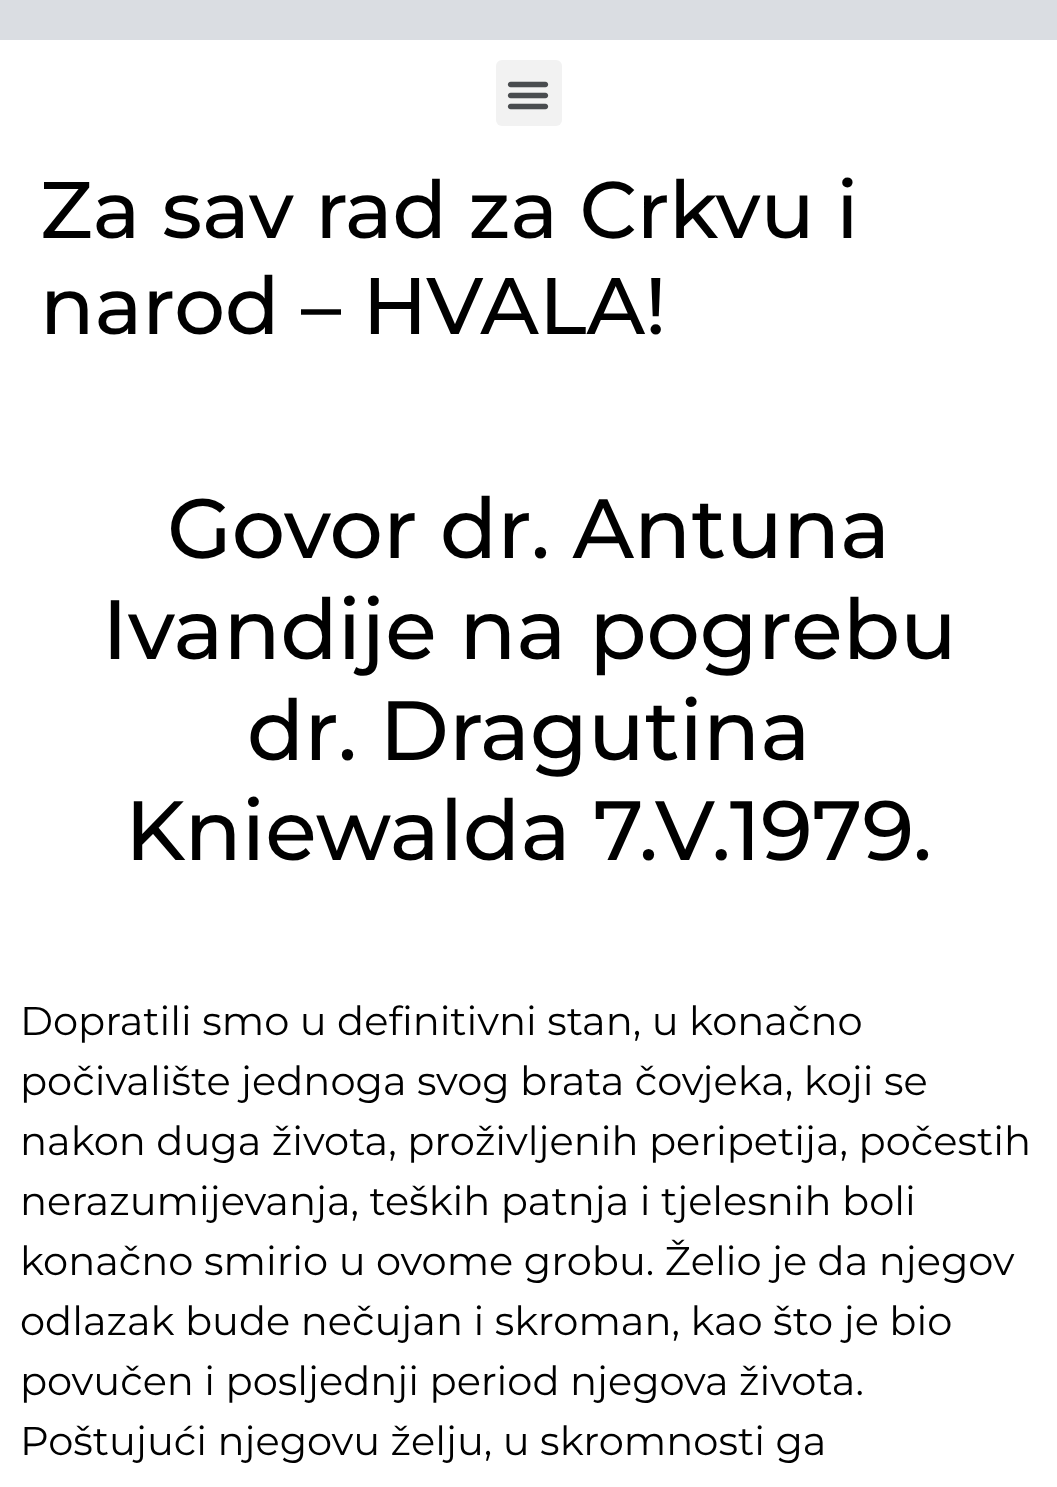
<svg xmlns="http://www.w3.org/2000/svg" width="1057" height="1487">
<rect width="100%" height="100%" fill="#fff"/>
<rect width="1057" height="40" fill="#dadde2"/>
<rect x="496" y="60" width="66" height="66" rx="6" fill="#f2f2f2"/>
<image x="507" y="81" width="42" height="29" href="media/1.png"/>
<text x="40" y="238" style="font-family:Montserrat;font-size:80px;font-weight:500;fill:#000">Za sav rad za Crkvu i</text>
<text x="40" y="334" style="font-family:Montserrat;font-size:80px;font-weight:500;fill:#000">narod – HVALA!</text>
<text x="167" y="558" style="font-family:Montserrat;font-size:84px;font-weight:500;fill:#000">Govor dr. Antuna</text>
<text x="102" y="659" style="font-family:Montserrat;font-size:84px;font-weight:500;fill:#000">Ivandije na pogrebu</text>
<text x="247" y="760" style="font-family:Montserrat;font-size:84px;font-weight:500;fill:#000">dr. Dragutina</text>
<text x="125" y="860" style="font-family:Montserrat;font-size:84px;font-weight:500;fill:#000">Kniewalda 7.V.1979.</text>
<text x="20" y="1035" style="font-family:Montserrat;font-size:40px;fill:#000">Dopratili smo u definitivni stan, u konačno</text>
<text x="20" y="1095" style="font-family:Montserrat;font-size:40px;fill:#000">počivalište jednoga svog brata čovjeka, koji se</text>
<text x="20" y="1155" style="font-family:Montserrat;font-size:40px;fill:#000">nakon duga života, proživljenih peripetija, počestih</text>
<text x="20" y="1215" style="font-family:Montserrat;font-size:40px;fill:#000">nerazumijevanja, teških patnja i tjelesnih boli</text>
<text x="20" y="1275" style="font-family:Montserrat;font-size:40px;fill:#000">konačno smirio u ovome grobu. Želio je da njegov</text>
<text x="20" y="1335" style="font-family:Montserrat;font-size:40px;fill:#000">odlazak bude nečujan i skroman, kao što je bio</text>
<text x="20" y="1395" style="font-family:Montserrat;font-size:40px;fill:#000">povučen i posljednji period njegova života.</text>
<text x="20" y="1455" style="font-family:Montserrat;font-size:40px;fill:#000">Poštujući njegovu želju, u skromnosti ga</text>
</svg>
